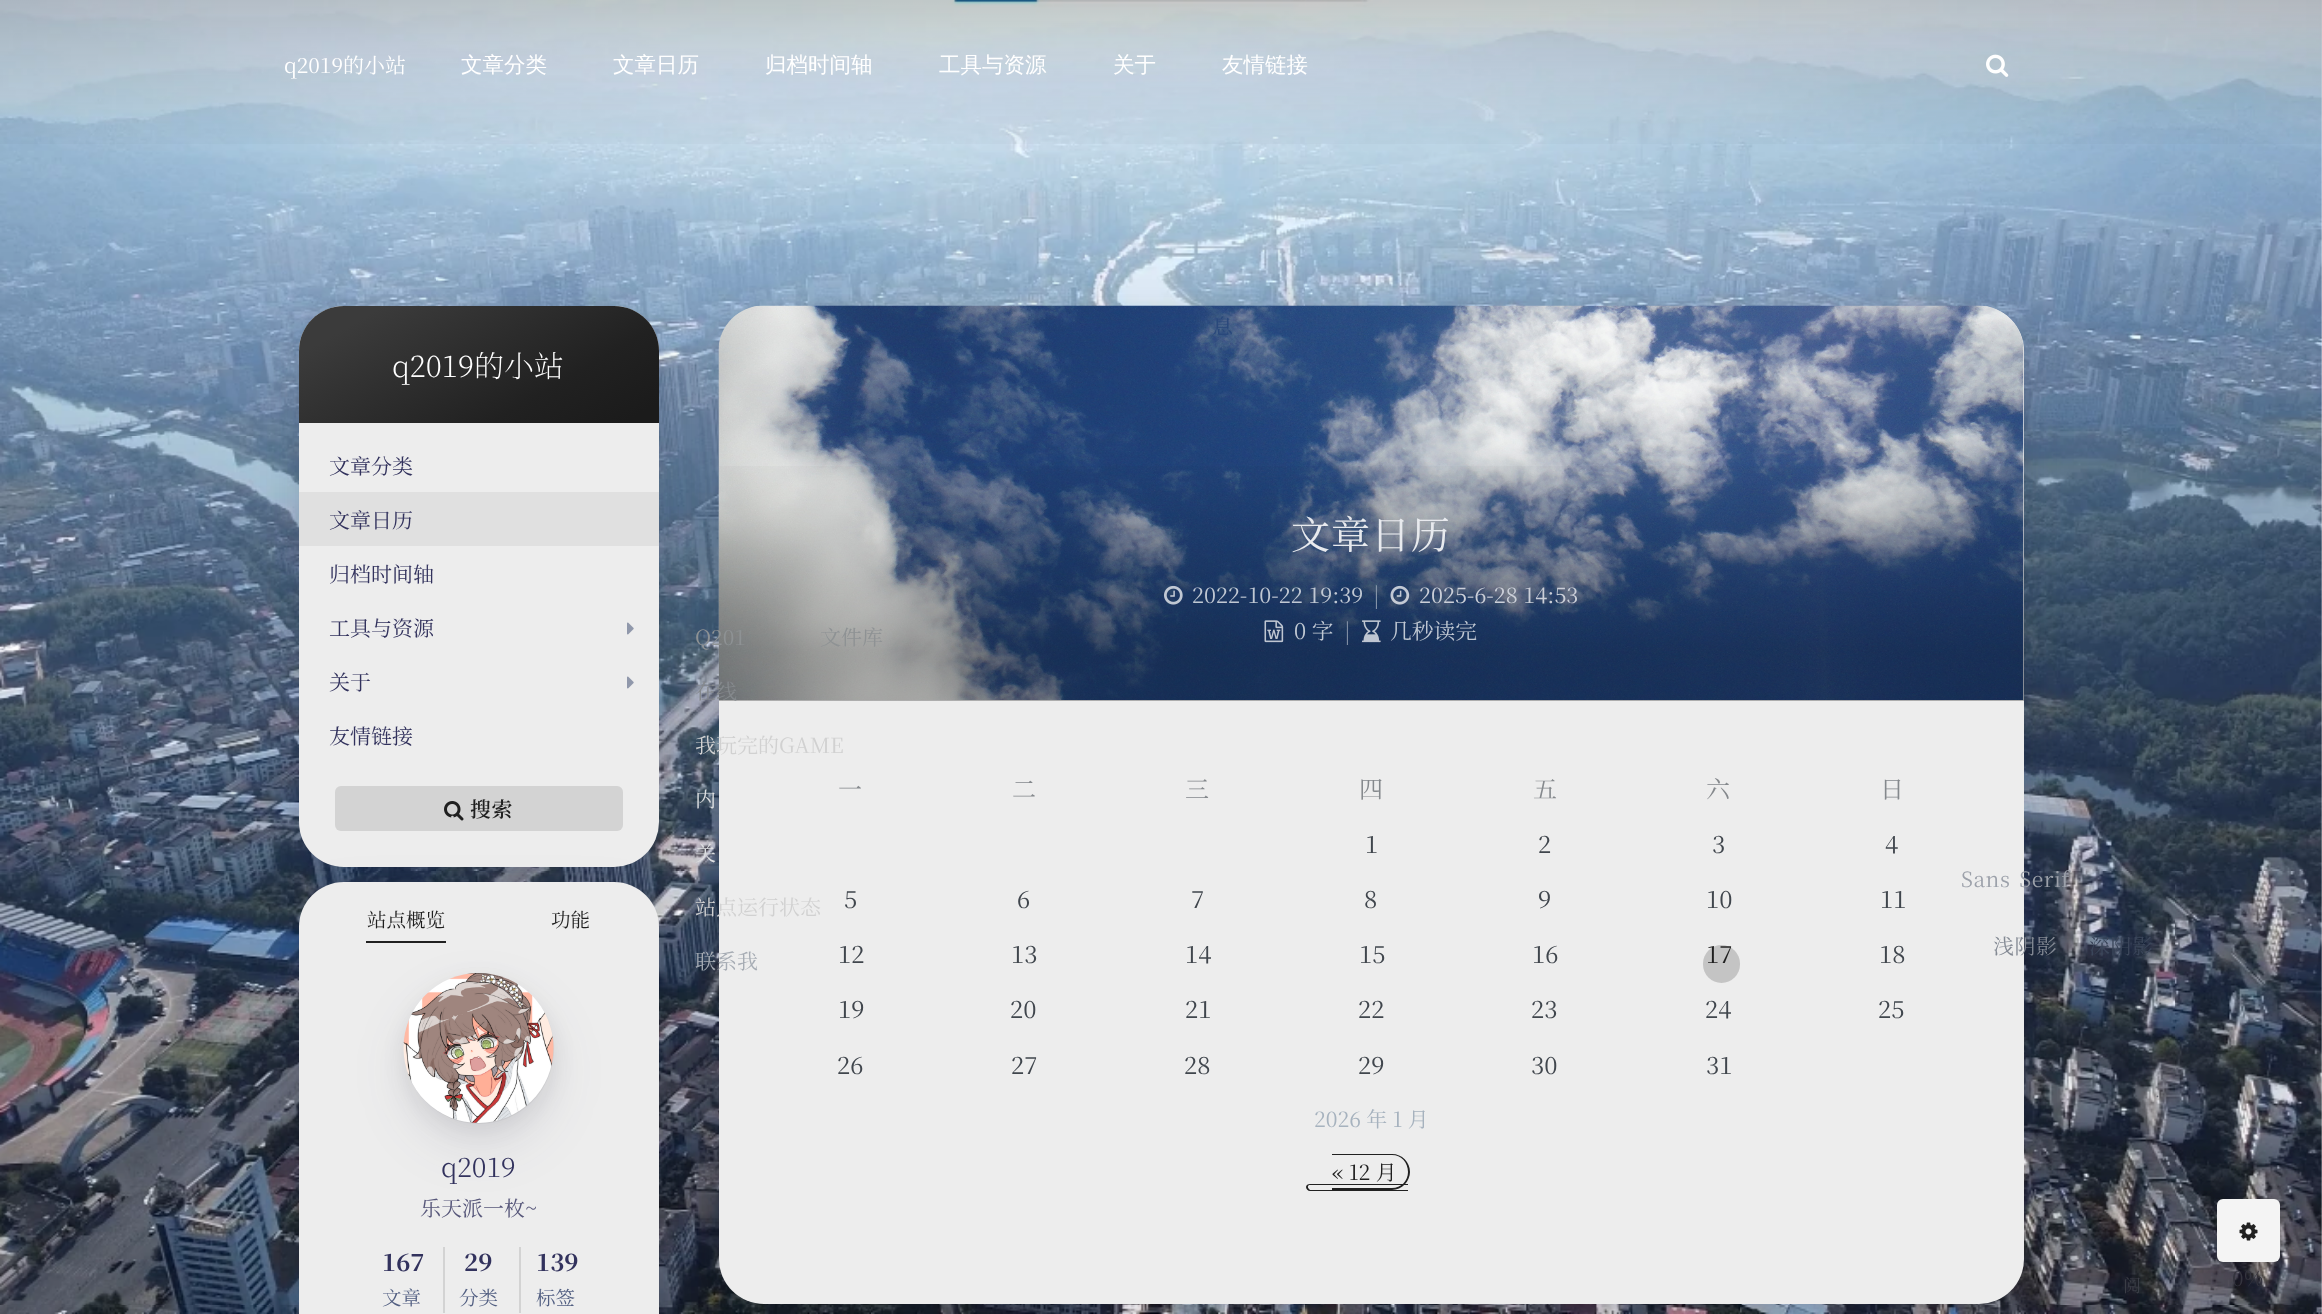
<svg xmlns="http://www.w3.org/2000/svg" width="2322" height="1314">
<style>*{font-kerning:none!important;font-variant-ligatures:none!important}</style>
<defs>
<linearGradient id="g1" gradientUnits="userSpaceOnUse" x1="1161" y1="-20" x2="1161" y2="161"><stop offset="0" stop-color="#000" stop-opacity="0.25"/><stop offset="0.35" stop-color="#000" stop-opacity="0.15"/><stop offset="1" stop-color="#000" stop-opacity="0"/></linearGradient>
<linearGradient id="g2" gradientUnits="userSpaceOnUse" x1="408" y1="243" x2="549" y2="486"><stop offset="0.15" stop-color="#3b3b3b"/><stop offset="0.7" stop-color="#212121"/><stop offset="0.94" stop-color="#1b1b1b"/></linearGradient>
<linearGradient id="g3" gradientUnits="userSpaceOnUse" x1="1371" y1="701" x2="1371" y2="450"><stop offset="0.2" stop-color="#000" stop-opacity="0.27"/><stop offset="1" stop-color="#000" stop-opacity="0"/></linearGradient>
</defs>
<rect width="100%" height="100%" fill="#fff"/>
<image x="0" y="0" width="2322" height="1314" href="media/2.png"/>
<rect width="2322" height="144" fill="url(#g1)"/>
<text x="284" y="73" style="font-family:Noto Serif SC;font-size:21px;fill:#fff">q2019的小站</text>
<text x="461" y="72" style="font-family:WenQuanYi Zen Hei;font-size:21.5px;font-weight:500;fill:#fff">文章分类</text>
<text x="613" y="72" style="font-family:WenQuanYi Zen Hei;font-size:21.5px;font-weight:500;fill:#fff">文章日历</text>
<text x="765" y="72" style="font-family:WenQuanYi Zen Hei;font-size:21.5px;font-weight:500;fill:#fff">归档时间轴</text>
<text x="939" y="72" style="font-family:WenQuanYi Zen Hei;font-size:21.5px;font-weight:500;fill:#fff">工具与资源</text>
<text x="1113" y="72" style="font-family:WenQuanYi Zen Hei;font-size:21.5px;font-weight:500;fill:#fff">关于</text>
<rect x="719" y="314" width="1305" height="997" rx="45" fill="#00000012" filter="blur(11px)"/>
<rect x="299" y="314" width="360" height="561" rx="45" fill="#00000012" filter="blur(11px)"/>
<rect x="299" y="329" width="360" height="561" rx="45" fill="#32325d1a" filter="blur(26px)"/>
<rect x="299" y="306" width="360" height="561" rx="45" fill="#ededed"/>
<path d="M344 306h270c25 0 45 20 45 45v72h-360v-72c0-25 20-45 45-45z" fill="url(#g2)"/>
<rect x="299" y="492" width="360" height="54" fill="#e0e0e0"/>
<rect x="299" y="890" width="360" height="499" rx="45" fill="#00000012" filter="blur(11px)"/>
<rect x="335" y="786" width="288" height="45" rx="6" fill="#d3d3d3"/>
<rect x="299" y="905" width="360" height="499" rx="45" fill="#32325d1a" filter="blur(26px)"/>
<rect x="299" y="882" width="360" height="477" rx="45" fill="#ededed"/>
<rect x="719" y="329" width="1305" height="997" rx="45" fill="#32325d1a" filter="blur(26px)"/>
<rect x="719" y="306" width="1305" height="998" rx="45" fill="#ededed"/>
<image x="718" y="305" width="1306" height="395" href="media/6.png"/>
<text x="1212" y="334" style="font-family:Noto Serif SC;font-size:21px;fill:#29487b">息</text>
<text x="1222" y="72" style="font-family:WenQuanYi Zen Hei;font-size:21.5px;font-weight:500;fill:#fff">友情链接</text>
<image x="1986" y="54" width="23" height="23" href="media/1.png"/>
<text x="392" y="377" style="font-family:Noto Serif SC;font-size:30px;font-weight:200;fill:#fff">q2019的小站</text>
<text x="329" y="474" style="font-family:Noto Serif SC;font-size:21px;fill:#32325d">文章分类</text>
<text x="329" y="528" style="font-family:Noto Serif SC;font-size:21px;fill:#32325d">文章日历</text>
<text x="329" y="582" style="font-family:Noto Serif SC;font-size:21px;fill:#32325d">归档时间轴</text>
<text x="329" y="636" style="font-family:Noto Serif SC;font-size:21px;fill:#32325d">工具与资源</text>
<image x="627" y="622" width="7" height="13" href="media/3.png"/>
<rect x="719" y="466" width="1305" height="235" fill="url(#g3)"/>
<text x="695" y="645" style="font-family:Noto Serif SC;font-size:21px;fill:#8e9294">Q201</text>
<text x="820" y="645" style="font-family:Noto Serif SC;font-size:21px;fill:#8e9294">文件库</text>
<text x="695" y="699" style="font-family:Noto Serif SC;font-size:21px;fill:#85898d">在线</text>
<text x="329" y="690" style="font-family:Noto Serif SC;font-size:21px;fill:#32325d">关于</text>
<image x="627" y="676" width="7" height="13" href="media/3.png"/>
<text x="695" y="753" style="font-family:Noto Serif SC;font-size:21px;fill:#d1d1d1">我玩完的GAME</text>
<text x="695" y="807" style="font-family:Noto Serif SC;font-size:21px;fill:#dddfe1">内</text>
<text x="695" y="861" style="font-family:Noto Serif SC;font-size:21px;fill:#dddfe1">关</text>
<text x="695" y="915" style="font-family:Noto Serif SC;font-size:21px;fill:#d1d1d1">站点运行状态</text>
<text x="695" y="969" style="font-family:Noto Serif SC;font-size:21px;fill:#a6acb4">联系我</text>
<text x="329" y="744" style="font-family:Noto Serif SC;font-size:21px;fill:#32325d">友情链接</text>
<image x="444" y="801" width="20" height="20" href="media/4.png"/>
<text x="470" y="817" style="font-family:Noto Serif SC;font-size:21px;font-weight:600;letter-spacing:0.5px;fill:#1f1f1f">搜索</text>
<text x="449" y="818" style="font-family:Noto Serif SC;font-size:21px;fill:#d1d1d1">.</text>
<rect x="404" y="996" width="150" height="150" rx="75" fill="#32325d1a" filter="blur(26px)"/>
<text x="367" y="927" style="font-family:Noto Serif SC;font-size:19.5px;fill:#1f1f1f">站点概览</text>
<rect x="366" y="941" width="80" height="2" fill="#212121"/>
<text x="551" y="927" style="font-family:Noto Serif SC;font-size:19.5px;fill:#1f1f1f">功能</text>
<rect x="404" y="981" width="150" height="150" rx="75" fill="#00000012" filter="blur(11px)"/>
<circle cx="479" cy="1049" r="75" fill="#7f7f7f1a"/>
<image x="403" y="973" width="151" height="150" href="media/5.png"/>
<text x="441" y="1177" style="font-family:Noto Serif SC;font-size:27px;font-weight:300;fill:#32325d">q2019</text>
<text x="420" y="1216" style="font-family:Noto Serif SC;font-size:21px;fill:#57577a">乐天派一枚~</text>
<text x="382" y="1271" style="font-family:Noto Serif SC;font-size:24px;font-weight:bold;fill:#32325d">167</text>
<text x="382" y="1305" style="font-family:Noto Serif SC;font-size:19.5px;fill:#525f82">文章</text>
<rect x="443" y="1247" width="2" height="66" fill="#d3d3d3"/>
<text x="464" y="1271" style="font-family:Noto Serif SC;font-size:24px;font-weight:bold;fill:#32325d">29</text>
<text x="459" y="1305" style="font-family:Noto Serif SC;font-size:19.5px;fill:#525f82">分类</text>
<rect x="519" y="1247" width="2" height="66" fill="#d3d3d3"/>
<text x="536" y="1271" style="font-family:Noto Serif SC;font-size:24px;font-weight:bold;fill:#32325d">139</text>
<text x="536" y="1305" style="font-family:Noto Serif SC;font-size:19.5px;fill:#525f82">标签</text>
<text x="1291" y="549" style="font-family:Noto Serif SC;font-size:39px;letter-spacing:1px;fill:#e8eaee">文章日历</text>
<image x="1164" y="585" width="19" height="20" href="media/7.png"/>
<text x="1192" y="603" style="font-family:Noto Serif SC;font-size:21.75px;fill:#c0c8d3">2022-10-22 19:39</text>
<text x="1373" y="603" style="font-family:Noto Serif SC;font-size:21.75px;fill:#8897ab">|</text>
<image x="1390" y="585" width="20" height="20" href="media/8.png"/>
<text x="1419" y="603" style="font-family:Noto Serif SC;font-size:21.75px;fill:#cbcfd8">2025-6-28 14:53</text>
<image x="1264" y="620" width="20" height="23" href="media/9.png"/>
<text x="1294" y="639" style="font-family:Noto Serif SC;font-size:21.75px;fill:#c0c8d3">0 字</text>
<text x="1344" y="639" style="font-family:Noto Serif SC;font-size:21.75px;fill:#8391a6">|</text>
<image x="1362" y="620" width="19" height="23" href="media/10.png"/>
<text x="1390" y="639" style="font-family:Noto Serif SC;font-size:21.75px;fill:#c0c8d3">几秒读完</text>
<text x="838" y="798" style="font-family:Noto Serif SC;font-size:24px;fill:#85898d">一</text>
<text x="1012" y="798" style="font-family:Noto Serif SC;font-size:24px;fill:#85898d">二</text>
<text x="1185" y="798" style="font-family:Noto Serif SC;font-size:24px;fill:#85898d">三</text>
<text x="1359" y="798" style="font-family:Noto Serif SC;font-size:24px;fill:#85898d">四</text>
<text x="1533" y="798" style="font-family:Noto Serif SC;font-size:24px;fill:#85898d">五</text>
<text x="1706" y="798" style="font-family:Noto Serif SC;font-size:24px;fill:#85898d">六</text>
<text x="1880" y="798" style="font-family:Noto Serif SC;font-size:24px;fill:#85898d">日</text>
<text x="1365" y="853" style="font-family:Noto Serif SC;font-size:24px;fill:#40464d">1</text>
<text x="1538" y="853" style="font-family:Noto Serif SC;font-size:24px;fill:#40464d">2</text>
<text x="1712" y="853" style="font-family:Noto Serif SC;font-size:24px;fill:#40464d">3</text>
<text x="1885" y="853" style="font-family:Noto Serif SC;font-size:24px;fill:#40464d">4</text>
<text x="844" y="908" style="font-family:Noto Serif SC;font-size:24px;fill:#40464d">5</text>
<text x="1017" y="908" style="font-family:Noto Serif SC;font-size:24px;fill:#40464d">6</text>
<text x="1191" y="908" style="font-family:Noto Serif SC;font-size:24px;fill:#40464d">7</text>
<text x="1364" y="908" style="font-family:Noto Serif SC;font-size:24px;fill:#40464d">8</text>
<text x="1538" y="908" style="font-family:Noto Serif SC;font-size:24px;fill:#40464d">9</text>
<text x="1706" y="908" style="font-family:Noto Serif SC;font-size:24px;fill:#40464d">10</text>
<text x="1880" y="908" style="font-family:Noto Serif SC;font-size:24px;fill:#40464d">11</text>
<text x="838" y="963" style="font-family:Noto Serif SC;font-size:24px;fill:#40464d">12</text>
<text x="1011" y="963" style="font-family:Noto Serif SC;font-size:24px;fill:#40464d">13</text>
<text x="1185" y="963" style="font-family:Noto Serif SC;font-size:24px;fill:#40464d">14</text>
<text x="1359" y="963" style="font-family:Noto Serif SC;font-size:24px;fill:#40464d">15</text>
<text x="1532" y="963" style="font-family:Noto Serif SC;font-size:24px;fill:#40464d">16</text>
<text x="1706" y="963" style="font-family:Noto Serif SC;font-size:24px;fill:#1f1f1f">17</text>
<rect x="1703" y="945" width="37" height="38" rx="18.5" fill="#21212133"/>
<text x="1879" y="963" style="font-family:Noto Serif SC;font-size:24px;fill:#40464d">18</text>
<text x="838" y="1018" style="font-family:Noto Serif SC;font-size:24px;fill:#40464d">19</text>
<text x="1010" y="1018" style="font-family:Noto Serif SC;font-size:24px;fill:#40464d">20</text>
<text x="1185" y="1018" style="font-family:Noto Serif SC;font-size:24px;fill:#40464d">21</text>
<text x="1358" y="1018" style="font-family:Noto Serif SC;font-size:24px;fill:#40464d">22</text>
<text x="1531" y="1018" style="font-family:Noto Serif SC;font-size:24px;fill:#40464d">23</text>
<text x="1705" y="1018" style="font-family:Noto Serif SC;font-size:24px;fill:#40464d">24</text>
<text x="1878" y="1018" style="font-family:Noto Serif SC;font-size:24px;fill:#40464d">25</text>
<text x="837" y="1074" style="font-family:Noto Serif SC;font-size:24px;fill:#40464d">26</text>
<text x="1011" y="1074" style="font-family:Noto Serif SC;font-size:24px;fill:#40464d">27</text>
<text x="1184" y="1074" style="font-family:Noto Serif SC;font-size:24px;fill:#40464d">28</text>
<text x="1358" y="1074" style="font-family:Noto Serif SC;font-size:24px;fill:#40464d">29</text>
<text x="1531" y="1074" style="font-family:Noto Serif SC;font-size:24px;fill:#40464d">30</text>
<text x="1706" y="1074" style="font-family:Noto Serif SC;font-size:24px;fill:#40464d">31</text>
<text x="1314" y="1127" style="font-family:Noto Serif SC;font-size:21px;fill:#a6b2be">2026 年 1 月</text>
<path d="M1310 1184h98v7h-98c-2 0-4-2-4-4c0-2 2-3 4-3zm0 1h98v5h-98l-1-1c-2-2-1-4 1-4z" fill="#212121" fill-rule="evenodd"/>
<path d="M1332 1154h60c10 0 18 8 18 18c0 9-8 18-18 18h-60zm0 1h60c9 0 16 7 16 17c0 9-7 16-16 16h-60z" fill="#212121" fill-rule="evenodd"/>
<text x="1332" y="1180" style="font-family:Noto Serif SC;font-size:21px;fill:#1f1f1f">« 12 月</text>
<text x="1961" y="887" word-spacing="3" style="font-family:Noto Serif SC;font-size:21px;letter-spacing:0.5px;fill:#9ca1aa">Sans Serif</text>
<text x="1993" y="954" style="font-family:Noto Serif SC;font-size:21px;letter-spacing:0.5px;fill:#838993">浅阴影</text>
<text x="2089" y="954" style="font-family:Noto Serif SC;font-size:21px;letter-spacing:0.5px;fill:#3b465a">深阴影</text>
<text x="2155" y="1097" style="font-family:Noto Serif SC;font-size:15px;fill:#656872">.</text>
<rect x="2217" y="1206" width="63" height="63" rx="6" fill="#00000012" filter="blur(11px)"/>
<rect x="2217" y="1221" width="63" height="63" rx="6" fill="#32325d1a" filter="blur(26px)"/>
<rect x="2217" y="1199" width="63" height="63" rx="6" fill="#f4f4f4"/>
<image x="2239" y="1222" width="19" height="19" href="media/11.png"/>
<text x="2123" y="1292" style="font-family:Noto Serif SC;font-size:18px;letter-spacing:0.5px;fill:#3a3d46">阅</text>
<text x="2232" y="1286" style="font-family:Noto Serif SC;font-size:21px;letter-spacing:0.5px;fill:#34343e">0%</text>
</svg>
